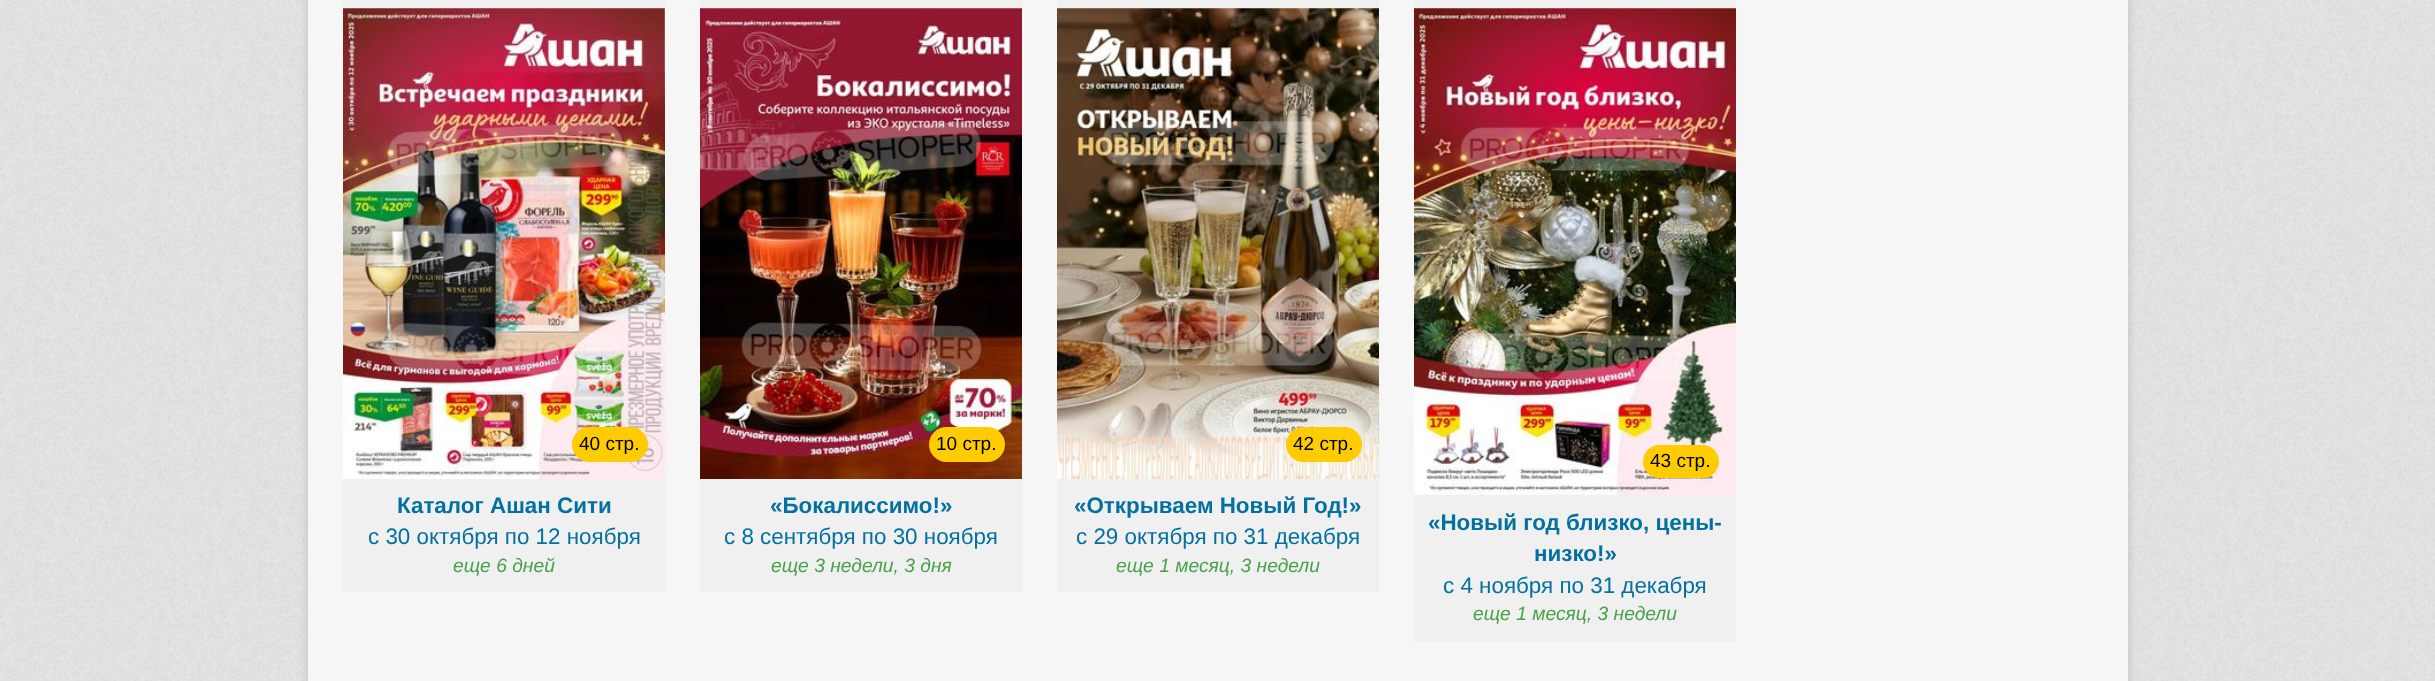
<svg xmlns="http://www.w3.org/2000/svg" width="2435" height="681">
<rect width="100%" height="100%" fill="#fff"/>
<image x="0" y="0" width="2435" height="681" href="media/1.png"/>
<rect x="308" y="-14" width="1820" height="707" fill="#00000026" filter="blur(4.5px)"/>
<rect x="308" width="1820" height="681" fill="#f6f6f6"/>
<rect x="343" width="322" height="592" fill="#f0f0f0"/>
<image x="343" y="8" width="322" height="471" href="media/2.png"/>
<rect x="572" y="427" width="76" height="35" rx="17.5" fill="#ffcc01"/>
<text x="579" y="450" style="font-family:Liberation Sans;font-size:19px;fill:#000">40 стр.</text>
<text x="397" y="513" style="font-family:Liberation Sans;font-size:22.4px;font-weight:bold;fill:#0371a0">Каталог Ашан Сити</text>
<text x="368" y="544" style="font-family:Liberation Sans;font-size:22.4px;fill:#0371a0">с 30 октября по 12 ноября</text>
<text x="453" y="572" style="font-family:Liberation Sans;font-size:19.25px;font-style:italic;fill:#48a248">еще 6 дней</text>
<rect x="700" width="322" height="592" fill="#f0f0f0"/>
<image x="700" y="8" width="322" height="471" href="media/3.png"/>
<rect x="929" y="427" width="76" height="35" rx="17.5" fill="#ffcc01"/>
<text x="936" y="450" style="font-family:Liberation Sans;font-size:19px;fill:#000">10 стр.</text>
<text x="770" y="513" style="font-family:Liberation Sans;font-size:22.4px;font-weight:bold;fill:#0371a0">«Бокалиссимо!»</text>
<text x="724" y="544" style="font-family:Liberation Sans;font-size:22.4px;fill:#0371a0">с 8 сентября по 30 ноября</text>
<text x="771" y="572" style="font-family:Liberation Sans;font-size:19.25px;font-style:italic;fill:#48a248">еще 3 недели, 3 дня</text>
<rect x="1057" width="322" height="592" fill="#f0f0f0"/>
<image x="1057" y="8" width="322" height="471" href="media/4.png"/>
<rect x="1286" y="427" width="76" height="35" rx="17.5" fill="#ffcc01"/>
<text x="1293" y="450" style="font-family:Liberation Sans;font-size:19px;fill:#000">42 стр.</text>
<text x="1074" y="513" style="font-family:Liberation Sans;font-size:22.4px;font-weight:bold;fill:#0371a0">«Открываем Новый Год!»</text>
<text x="1076" y="544" style="font-family:Liberation Sans;font-size:22.4px;fill:#0371a0">с 29 октября по 31 декабря</text>
<text x="1116" y="572" style="font-family:Liberation Sans;font-size:19.25px;font-style:italic;fill:#48a248">еще 1 месяц, 3 недели</text>
<rect x="1414" width="322" height="641" fill="#f0f0f0"/>
<image x="1414" y="8" width="322" height="487" href="media/5.png"/>
<rect x="1643" y="445" width="76" height="33" rx="16.5" fill="#ffcc01"/>
<text x="1650" y="467" style="font-family:Liberation Sans;font-size:19px;fill:#000">43 стр.</text>
<text x="1428" y="530" style="font-family:Liberation Sans;font-size:22.4px;font-weight:bold;fill:#0371a0">«Новый год близко, цены-</text>
<text x="1534" y="561" style="font-family:Liberation Sans;font-size:22.4px;font-weight:bold;fill:#0371a0">низко!»</text>
<text x="1443" y="593" style="font-family:Liberation Sans;font-size:22.4px;fill:#0371a0">с 4 ноября по 31 декабря</text>
<text x="1473" y="620" style="font-family:Liberation Sans;font-size:19.25px;font-style:italic;fill:#48a248">еще 1 месяц, 3 недели</text>
</svg>
